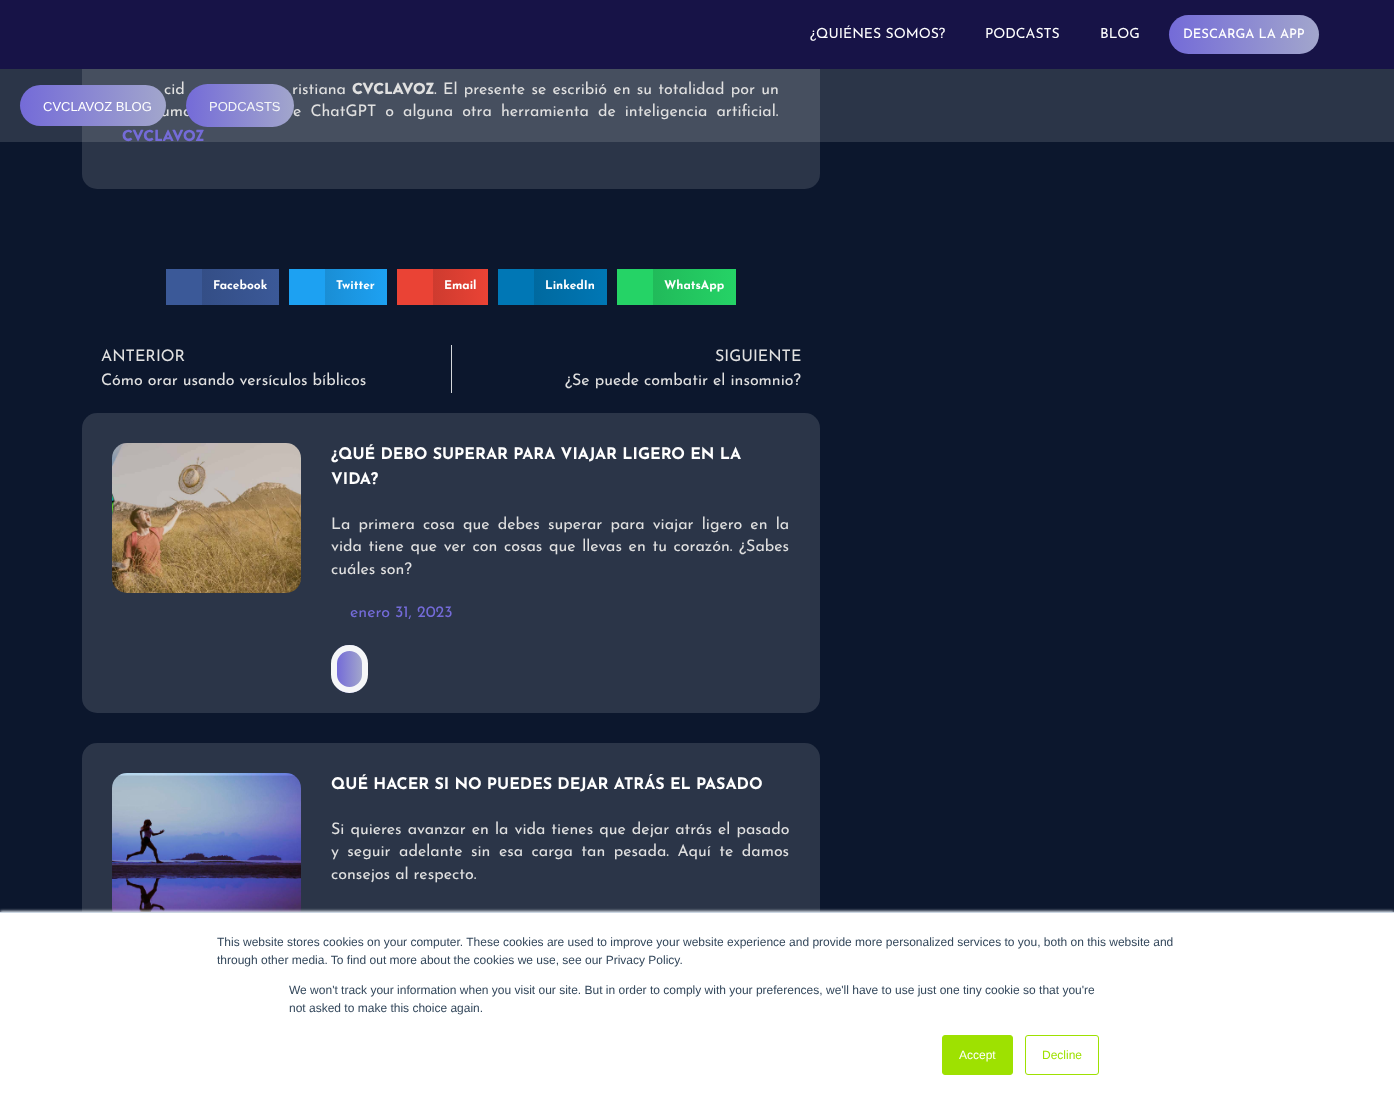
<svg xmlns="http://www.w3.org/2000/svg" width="1394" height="1101">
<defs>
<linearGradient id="g1" gradientUnits="userSpaceOnUse" x1="1169" y1="35" x2="1319" y2="34"><stop offset="0" stop-color="#746bd8"/><stop offset="1" stop-color="#a2a6cc"/></linearGradient>
<linearGradient id="g2" gradientUnits="userSpaceOnUse" x1="20" y1="106" x2="166" y2="106"><stop offset="0" stop-color="#746bd8"/><stop offset="1" stop-color="#a2a6cc"/></linearGradient>
<linearGradient id="g3" gradientUnits="userSpaceOnUse" x1="186" y1="106" x2="294" y2="106"><stop offset="0" stop-color="#746bd8"/><stop offset="1" stop-color="#a2a6cc"/></linearGradient>
<linearGradient id="g4" gradientUnits="userSpaceOnUse" x1="202" y1="287" x2="279" y2="287"><stop offset="0" stop-color="#344e86"/><stop offset="1" stop-color="#3b5998"/></linearGradient>
<linearGradient id="g5" gradientUnits="userSpaceOnUse" x1="325" y1="287" x2="387" y2="287"><stop offset="0" stop-color="#1a8ed5"/><stop offset="1" stop-color="#1da1f2"/></linearGradient>
<linearGradient id="g6" gradientUnits="userSpaceOnUse" x1="433" y1="287" x2="488" y2="287"><stop offset="0" stop-color="#ce3b2f"/><stop offset="1" stop-color="#ea4335"/></linearGradient>
<linearGradient id="g7" gradientUnits="userSpaceOnUse" x1="534" y1="287" x2="607" y2="287"><stop offset="0" stop-color="#00699f"/><stop offset="1" stop-color="#0077b5"/></linearGradient>
<linearGradient id="g8" gradientUnits="userSpaceOnUse" x1="653" y1="287" x2="736" y2="287"><stop offset="0" stop-color="#21ba5a"/><stop offset="1" stop-color="#25d366"/></linearGradient>
<clipPath id="clip1"><rect x="331" y="645" width="37" height="48" rx="18.5"/></clipPath>
<linearGradient id="g9" gradientUnits="userSpaceOnUse" x1="337" y1="669" x2="362" y2="669"><stop offset="0" stop-color="#746bd8"/><stop offset="1" stop-color="#a2a6cc"/></linearGradient>
</defs>
<rect width="100%" height="100%" fill="#0c172d"/>
<rect x="82" y="15" width="738" height="174" rx="15" fill="#2b3548"/>
<rect width="1394" height="69" fill="#171347"/>
<text x="810" y="38" style="font-family:Josefin Sans;font-size:14px;fill:#fff">¿QUIÉNES SOMOS?</text>
<text x="985" y="38" style="font-family:Josefin Sans;font-size:14px;fill:#fff">PODCASTS</text>
<text x="1100" y="38" style="font-family:Josefin Sans;font-size:14px;fill:#fff">BLOG</text>
<rect x="1169" y="15" width="150" height="39" rx="19.5" fill="url(#g1)"/>
<text x="1183" y="38" style="font-family:Josefin Sans;font-size:13px;font-weight:500;fill:#fff">DESCARGA LA APP</text>
<rect y="69" width="1394" height="73" fill="#fdfcff21"/>
<text x="164" y="94" word-spacing="1.25" style="font-family:Josefin Sans;font-size:16px;fill:#e0e0e0">cid</text>
<text x="161" y="116" word-spacing="4" style="font-family:Josefin Sans;font-size:16px;fill:#e0e0e0">uma</text>
<rect x="20" y="85" width="146" height="41" rx="20.5" fill="url(#g2)"/>
<text x="43" y="111" style="font-family:Liberation Sans;font-size:13px;fill:#fff">CVCLAVOZ BLOG</text>
<text x="292" y="94" word-spacing="1.25" style="font-family:Josefin Sans;font-size:16px;fill:#e0e0e0">ristiana</text>
<rect x="186" y="84" width="108" height="43" rx="21.5" fill="url(#g3)"/>
<text x="209" y="111" style="font-family:Liberation Sans;font-size:13px;fill:#f5f6f8">PODCASTS</text>
<text x="352" y="94" style="font-family:Brandon Grotesque;font-size:16px;font-weight:900;fill:#e0e0e0">CVCLAVOZ</text>
<text x="434" y="94" word-spacing="1.25" style="font-family:Josefin Sans;font-size:16px;fill:#e0e0e0">. El presente se escribió en su totalidad por un</text>
<text x="293" y="116" word-spacing="4" style="font-family:Josefin Sans;font-size:16px;fill:#e0e0e0">e ChatGPT o alguna otra herramienta de inteligencia artificial.</text>
<text x="122" y="141" style="font-family:Brandon Grotesque;font-size:16px;font-weight:900;fill:#746bd8">CVCLAVOZ</text>
<rect x="166" y="269" width="36" height="36" fill="#3b5998"/>
<rect x="202" y="269" width="77" height="36" fill="url(#g4)"/>
<text x="213" y="289" style="font-family:Josefin Sans;font-size:12px;font-weight:bold;fill:#fff">Facebook</text>
<rect x="289" y="269" width="36" height="36" fill="#1da1f2"/>
<rect x="325" y="269" width="62" height="36" fill="url(#g5)"/>
<text x="336" y="289" style="font-family:Josefin Sans;font-size:12px;font-weight:bold;fill:#fff">Twitter</text>
<rect x="397" y="269" width="36" height="36" fill="#ea4335"/>
<rect x="433" y="269" width="55" height="36" fill="url(#g6)"/>
<text x="444" y="289" style="font-family:Josefin Sans;font-size:12px;font-weight:bold;fill:#fff">Email</text>
<rect x="498" y="269" width="36" height="36" fill="#0077b5"/>
<rect x="534" y="269" width="73" height="36" fill="url(#g7)"/>
<text x="545" y="289" style="font-family:Josefin Sans;font-size:12px;font-weight:bold;fill:#fff">LinkedIn</text>
<rect x="617" y="269" width="36" height="36" fill="#25d366"/>
<rect x="653" y="269" width="83" height="36" fill="url(#g8)"/>
<text x="664" y="289" style="font-family:Josefin Sans;font-size:12px;font-weight:bold;fill:#fff">WhatsApp</text>
<text x="101" y="361" style="font-family:Josefin Sans;font-size:16px;fill:#e0e0e0">ANTERIOR</text>
<text x="101" y="385" style="font-family:Josefin Sans;font-size:16px;fill:#e0e0e0">Cómo orar usando versículos bíblicos</text>
<rect x="451" y="345" width="1" height="48" fill="#d5d8dc"/>
<text x="715" y="361" style="font-family:Josefin Sans;font-size:16px;fill:#e0e0e0">SIGUIENTE</text>
<text x="565" y="385" style="font-family:Josefin Sans;font-size:16px;fill:#e0e0e0">¿Se puede combatir el insomnio?</text>
<rect x="82" y="413" width="738" height="300" rx="15" fill="#2b3548"/>
<image x="112" y="443" width="189" height="150" href="media/1.png"/>
<text x="331" y="459" style="font-family:Josefin Sans;font-size:16px;font-weight:bold;fill:#fff">¿QUÉ DEBO SUPERAR PARA VIAJAR LIGERO EN LA</text>
<text x="331" y="484" style="font-family:Josefin Sans;font-size:16px;font-weight:bold;fill:#fff">VIDA?</text>
<text x="331" y="529" word-spacing="3.1" style="font-family:Josefin Sans;font-size:16px;fill:#e0e0e0">La primera cosa que debes superar para viajar ligero en la</text>
<text x="331" y="551" word-spacing="1.6" style="font-family:Josefin Sans;font-size:16px;fill:#e0e0e0">vida tiene que ver con cosas que llevas en tu corazón. ¿Sabes</text>
<text x="331" y="574" style="font-family:Josefin Sans;font-size:16px;fill:#e0e0e0">cuáles son?</text>
<text x="350" y="617" style="font-family:Josefin Sans;font-size:16px;fill:#746bd8">enero 31, 2023</text>
<g clip-path="url(#clip1)">
<rect x="337" y="645" width="25" height="48" fill="url(#g9)"/>
</g>
<rect x="334" y="648" width="31" height="42" rx="15.5" fill="none" stroke="#f5f6f8" stroke-width="6"/>
<rect x="82" y="743" width="738" height="275" rx="15" fill="#2b3548"/>
<image x="112" y="773" width="189" height="139" href="media/2.png"/>
<text x="331" y="789" style="font-family:Josefin Sans;font-size:16px;font-weight:bold;fill:#fff">QUÉ HACER SI NO PUEDES DEJAR ATRÁS EL PASADO</text>
<text x="331" y="834" word-spacing="1" style="font-family:Josefin Sans;font-size:16px;fill:#e0e0e0">Si quieres avanzar en la vida tienes que dejar atrás el pasado</text>
<text x="331" y="856" word-spacing="3.4" style="font-family:Josefin Sans;font-size:16px;fill:#e0e0e0">y seguir adelante sin esa carga tan pesada. Aquí te damos</text>
<text x="331" y="879" style="font-family:Josefin Sans;font-size:16px;fill:#e0e0e0">consejos al respecto.</text>
<rect y="911" width="1394" height="189" fill="#eaf0f6" filter="blur(1.5px)"/>
<rect y="913" width="1394" height="188" fill="#fff"/>
<rect y="912" width="1394" height="1" fill="#cbd6e2"/>
<text x="217" y="946" style="font-family:Liberation Sans;font-size:12px;fill:#33475b">This website stores cookies on your computer. These cookies are used to improve your website experience and provide more personalized services to you, both on this website and</text>
<text x="217" y="964" style="font-family:Liberation Sans;font-size:12px;fill:#33475b">through other media. To find out more about the cookies we use, see our Privacy Policy.</text>
<text x="289" y="994" style="font-family:Liberation Sans;font-size:12px;fill:#33475b">We won't track your information when you visit our site. But in order to comply with your preferences, we'll have to use just one tiny cookie so that you're</text>
<text x="289" y="1012" style="font-family:Liberation Sans;font-size:12px;fill:#33475b">not asked to make this choice again.</text>
<rect x="942.5" y="1035.5" width="70" height="39" rx="2.5" fill="#9ee101" stroke="#9ee101"/>
<text x="959" y="1059" style="font-family:Liberation Sans;font-size:12px;fill:#fff">Accept</text>
<rect x="1025.5" y="1035.5" width="73" height="39" rx="2.5" fill="none" stroke="#9ee101"/>
<text x="1042" y="1059" style="font-family:Liberation Sans;font-size:12px;fill:#9ee101">Decline</text>
</svg>
